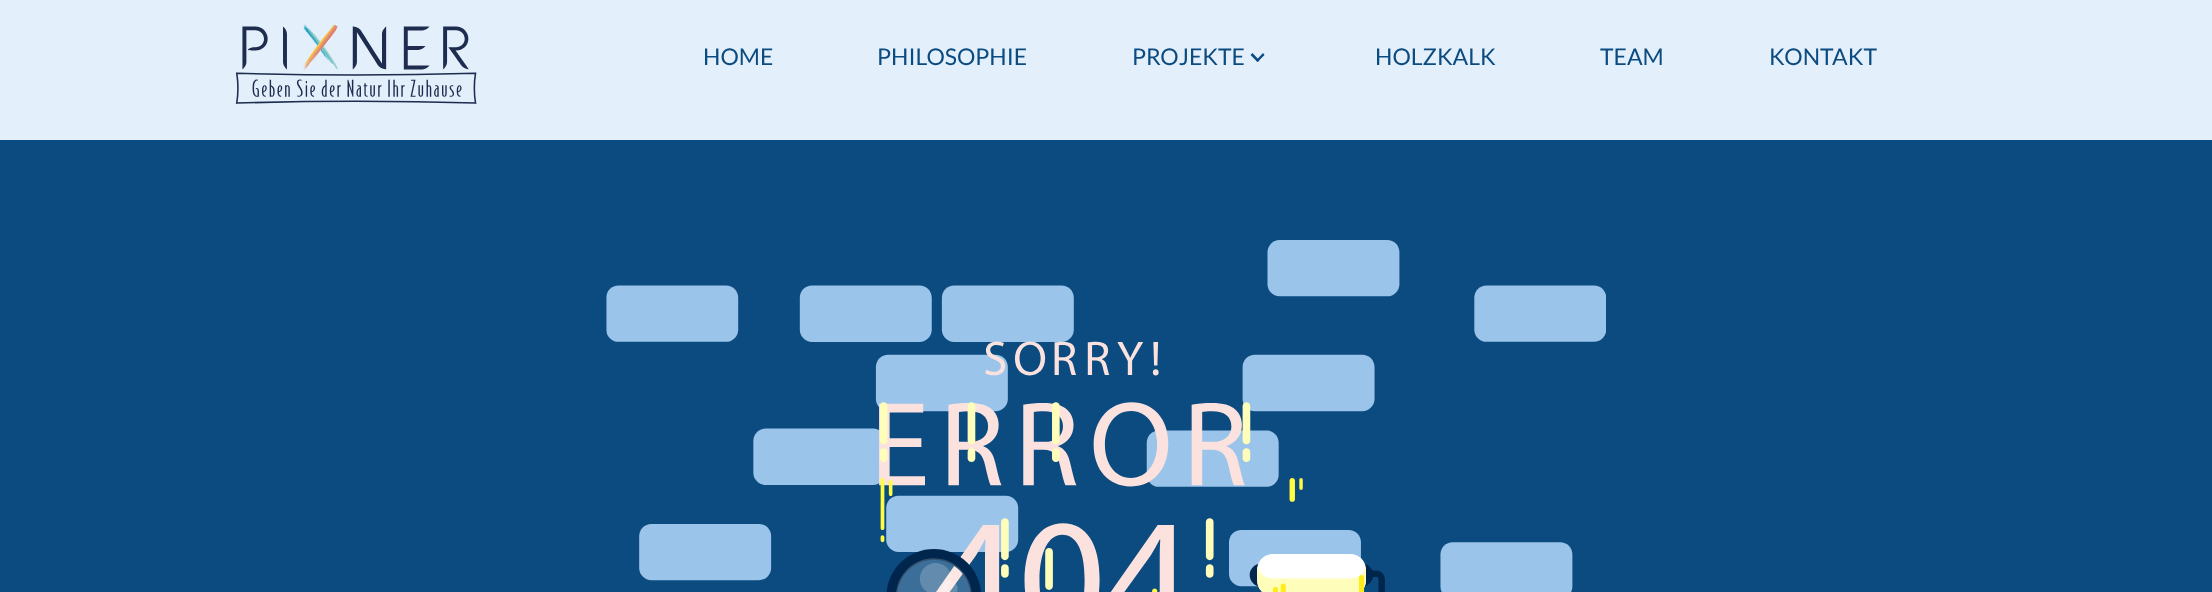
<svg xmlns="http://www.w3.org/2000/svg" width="2212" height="592">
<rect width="100%" height="100%" fill="#e3effa"/>
<image x="235" y="24" width="242" height="80" href="media/1.png"/>
<text x="703" y="65" style="font-family:Lato;font-size:23px;fill:#0b4b80">HOME</text>
<text x="877" y="65" style="font-family:Lato;font-size:23px;fill:#0b4b80">PHILOSOPHIE</text>
<text x="1132" y="65" style="font-family:Lato;font-size:23px;fill:#0b4b80">PROJEKTE</text>
<path d="M1257.5 62l-7-7l2-2l7 7.5z" fill="#0b4b80"/>
<path d="M1257.5 62l-1.5-1.5l7-7.5l1.5 2z" fill="#0b4b80"/>
<text x="1375" y="65" style="font-family:Lato;font-size:23px;fill:#0b4b80">HOLZKALK</text>
<text x="1600" y="65" style="font-family:Lato;font-size:23px;fill:#0b4b80">TEAM</text>
<text x="1769" y="65" style="font-family:Lato;font-size:23px;fill:#0b4b80">KONTAKT</text>
<rect y="140" width="2212" height="452" fill="#0b4b80"/>
<image x="606" y="240" width="1000" height="352" href="media/2.png"/>
</svg>
